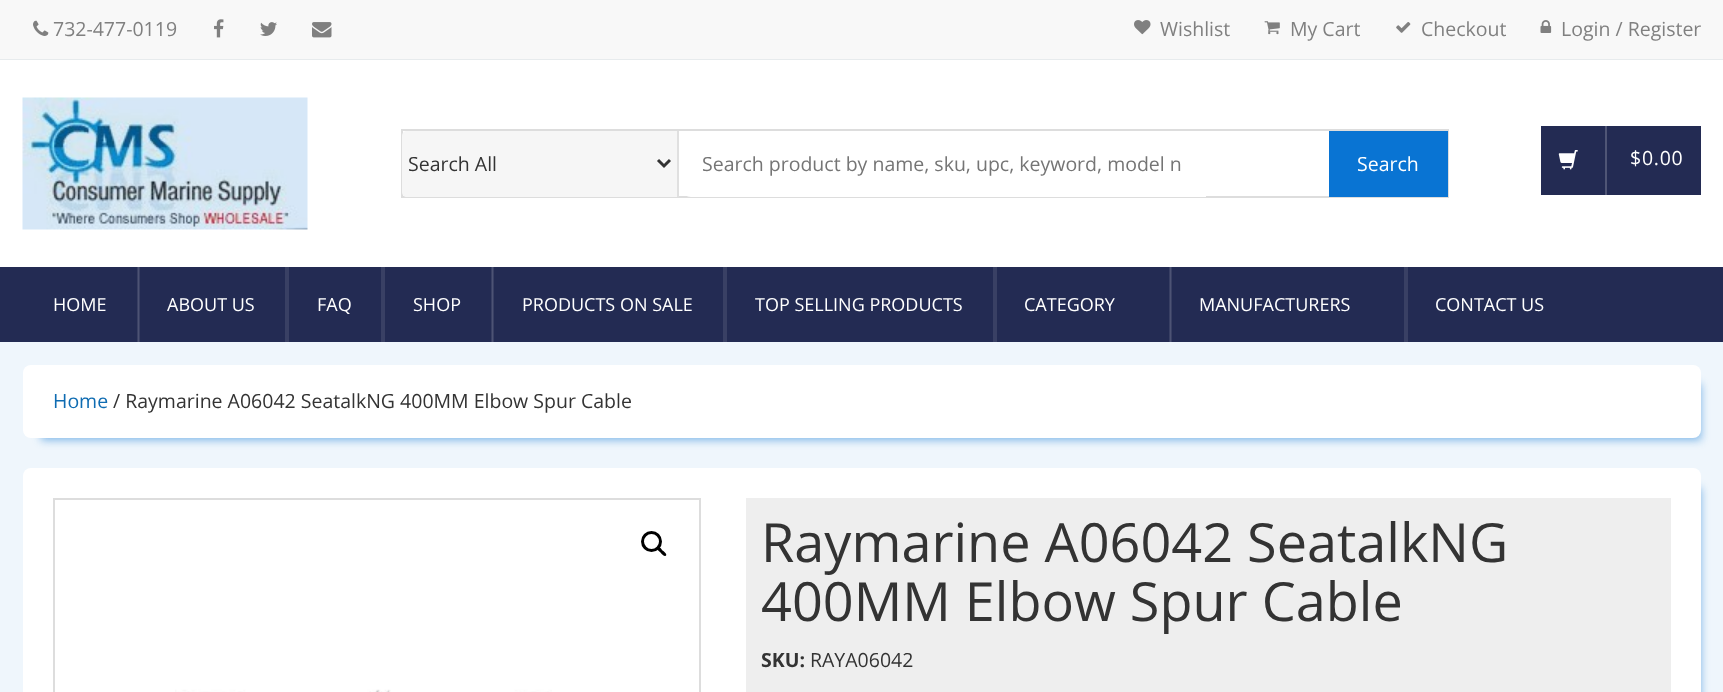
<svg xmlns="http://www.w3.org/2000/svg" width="1723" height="692">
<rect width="100%" height="100%" fill="#eff6fc"/>
<rect width="1723" height="59" fill="#f8f8f8"/>
<rect y="59" width="1723" height="1" fill="#e7ebed"/>
<image x="33" y="20" width="16" height="16" href="media/1.png"/>
<text x="53" y="36" style="font-family:Open Sans;font-size:19.5px;fill:#808080">732-477-0119</text>
<image x="214" y="19" width="10" height="19" href="media/2.png"/>
<image x="260" y="22" width="17" height="14" href="media/3.png"/>
<image x="312" y="22" width="20" height="16" href="media/4.png"/>
<image x="1134" y="20" width="17" height="15" href="media/5.png"/>
<text x="1160" y="36" style="font-family:Open Sans;font-size:19.5px;fill:#808080">Wishlist</text>
<image x="1264" y="21" width="16" height="14" href="media/6.png"/>
<text x="1290" y="36" style="font-family:Open Sans;font-size:19.5px;fill:#808080">My Cart</text>
<image x="1396" y="22" width="15" height="11" href="media/7.png"/>
<text x="1421" y="36" style="font-family:Open Sans;font-size:19.5px;fill:#808080">Checkout</text>
<image x="1540" y="20" width="12" height="13" href="media/8.png"/>
<text x="1561" y="36" style="font-family:Open Sans;font-size:19.5px;fill:#808080">Login / Register</text>
<rect y="60" width="1723" height="207" fill="#fff"/>
<image x="22" y="97" width="286" height="133" href="media/9.png"/>
<rect x="402" y="130" width="1046" height="67" fill="none" stroke="#ddd" stroke-width="2"/>
<path d="M407 131h271v66h-271c-3 0-5-2-5-5v-56c0-3 2-5 5-5z" fill="#f6f6f6"/>
<rect x="677" y="131" width="2" height="66" fill="#e0e0e0"/>
<path d="M658 160l6 6l6-6" fill="none" stroke="#333" stroke-width="3"/>
<text x="408" y="171" style="font-family:Open Sans;font-size:19.5px;fill:#333">Search All</text>
<path d="M691 131h515v66h-515c-4.5 0-8-3.5-8-8v-50c0-4.5 3.5-8 8-8z" fill="#fff"/>
<text x="702" y="171" style="font-family:Open Sans;font-size:19.5px;fill:#757575">Search product by name, sku, upc, keyword, model n</text>
<rect x="1329" y="131" width="119" height="66" fill="#0974d3"/>
<text x="1357" y="171" style="font-family:Open Sans;font-size:19.5px;fill:#fff">Search</text>
<rect x="1541" y="126" width="160" height="69" fill="#232b53"/>
<rect x="1605" y="126" width="2" height="69" fill="#4f5575"/>
<image x="1558" y="150" width="20" height="20" href="media/10.png"/>
<text x="1630" y="165" style="font-family:Open Sans;font-size:19.5px;letter-spacing:0.75px;fill:#fff">$0.00</text>
<rect y="267" width="1723" height="75" fill="#232b53"/>
<rect x="491" y="267" width="1" height="75" fill="#394064"/>
<rect x="137" y="267" width="1" height="75" fill="#394064"/>
<rect x="1169" y="267" width="1" height="75" fill="#394064"/>
<text x="53" y="311" style="font-family:Open Sans;font-size:18px;fill:#fff">HOME</text>
<rect x="139" y="267" width="1" height="75" fill="#394064"/>
<rect x="138" y="267" width="1" height="75" fill="#4d5374"/>
<text x="167" y="311" style="font-family:Open Sans;font-size:18px;fill:#fff">ABOUT US</text>
<rect x="285" y="267" width="4" height="75" fill="#394064"/>
<text x="317" y="311" style="font-family:Open Sans;font-size:18px;fill:#fff">FAQ</text>
<rect x="381" y="267" width="4" height="75" fill="#394064"/>
<text x="413" y="311" style="font-family:Open Sans;font-size:18px;fill:#fff">SHOP</text>
<rect x="493" y="267" width="1" height="75" fill="#394064"/>
<rect x="492" y="267" width="1" height="75" fill="#4d5374"/>
<text x="522" y="311" style="font-family:Open Sans;font-size:18px;fill:#fff">PRODUCTS ON SALE</text>
<rect x="723" y="267" width="4" height="75" fill="#394064"/>
<text x="755" y="311" style="font-family:Open Sans;font-size:18px;fill:#fff">TOP SELLING PRODUCTS</text>
<rect x="993" y="267" width="4" height="75" fill="#394064"/>
<text x="1024" y="311" style="font-family:Open Sans;font-size:18px;fill:#fff">CATEGORY</text>
<rect x="1171" y="267" width="1" height="75" fill="#394064"/>
<rect x="1170" y="267" width="1" height="75" fill="#4d5374"/>
<text x="1199" y="311" style="font-family:Open Sans;font-size:18px;fill:#fff">MANUFACTURERS</text>
<rect x="1404" y="267" width="4" height="75" fill="#394064"/>
<text x="1435" y="311" style="font-family:Open Sans;font-size:18px;fill:#fff">CONTACT US</text>
<rect x="41" y="384" width="1660" height="56" fill="#0874d380" filter="blur(4px)"/>
<rect x="23" y="365" width="1678" height="73" rx="8" fill="#fff"/>
<text x="53" y="408" style="font-family:Open Sans;font-size:19.5px;fill:#0f6cb2">Home</text>
<text x="113" y="408" style="font-family:Open Sans;font-size:19.5px;fill:#333">/ Raymarine A06042 SeatalkNG 400MM Elbow Spur Cable</text>
<rect x="41" y="488" width="1660" height="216" fill="#0874d380" filter="blur(4px)"/>
<rect x="23" y="468" width="1678" height="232" rx="8" fill="#fff"/>
<rect x="54" y="499" width="646" height="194" fill="none" stroke="#ddd" stroke-width="2"/>
<image x="175" y="689" width="377" height="3" href="media/11.png"/>
<circle cx="651.5" cy="541.5" r="9" fill="none" stroke="#000" stroke-width="3"/>
<path d="M657.5 547c1.5-1.5 4.5 2.5 5 3.5c1 .5 5 3.5 3.5 5c-2 2-4.5-2-5.5-3c-1-1-5-3.5-3-5.5z" fill="#000"/>
<rect x="746" y="498" width="925" height="194" fill="#eee"/>
<text x="761" y="562" style="font-family:Open Sans;font-size:54px;fill:#333">Raymarine A06042 SeatalkNG</text>
<text x="761" y="621" style="font-family:Open Sans;font-size:54px;fill:#333">400MM Elbow Spur Cable</text>
<text x="761" y="667" style="font-family:Open Sans;font-size:19.5px;font-weight:bold;fill:#333">SKU:</text>
<text x="810" y="667" style="font-family:Open Sans;font-size:19.5px;fill:#333">RAYA06042</text>
</svg>
